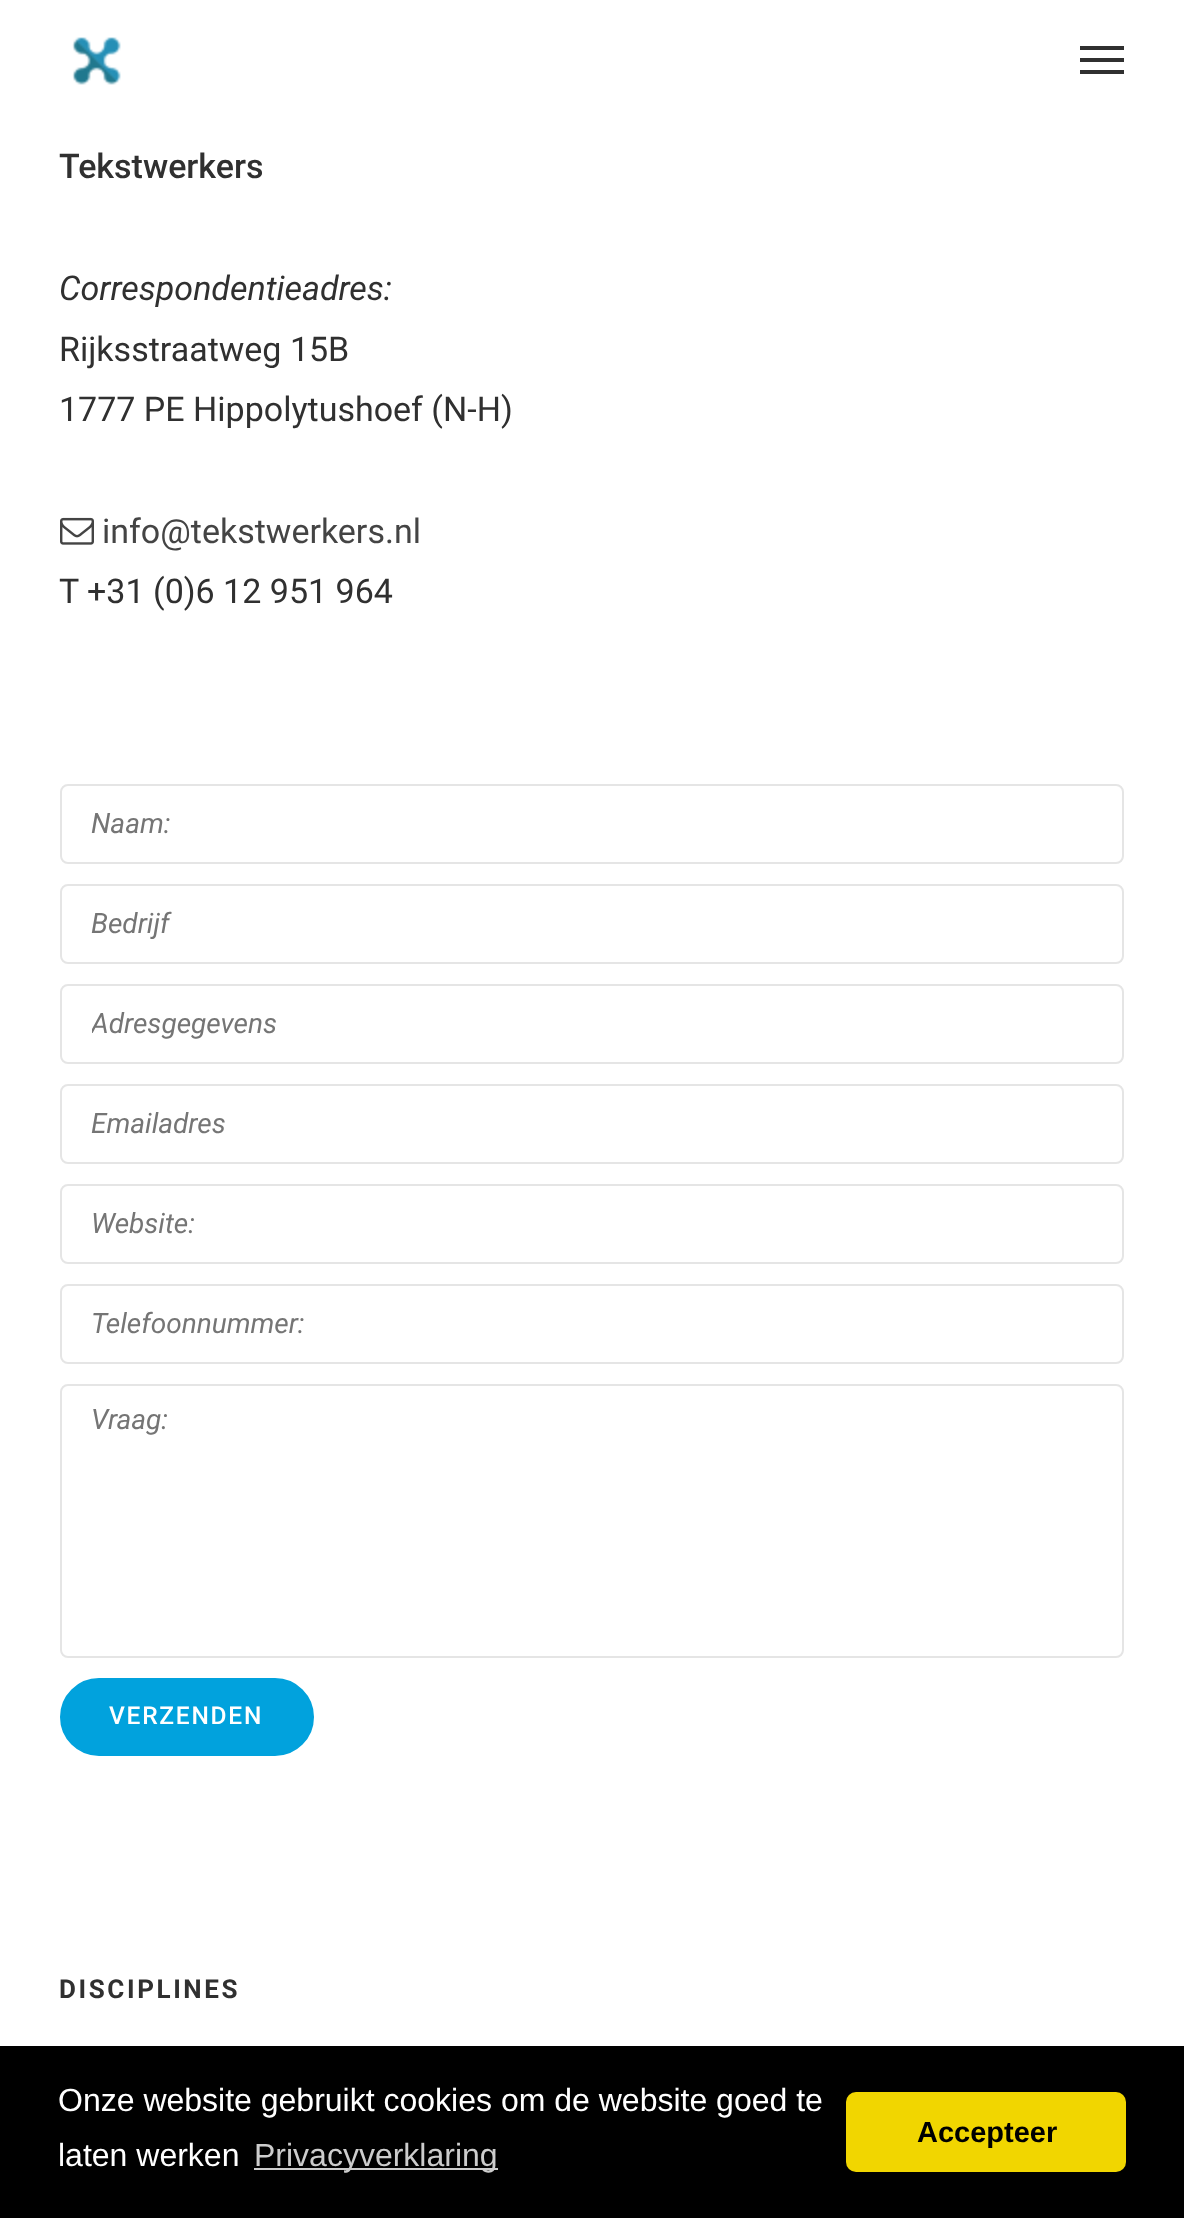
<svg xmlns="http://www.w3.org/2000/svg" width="1184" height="2218">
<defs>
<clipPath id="clip1"><rect x="92" y="1008" width="1000" height="32"/></clipPath>
</defs>
<rect width="100%" height="100%" fill="#fff"/>
<image x="72" y="37" width="49" height="48" href="media/1.png"/>
<rect x="1080" y="58" width="44" height="4" fill="#303030"/>
<rect x="1080" y="46" width="44" height="4" fill="#303030"/>
<rect x="1080" y="70" width="44" height="4" fill="#303030"/>
<text x="59" y="178" style="font-family:Roboto;font-size:34px;font-weight:500;fill:#303030">Tekstwerkers</text>
<text x="59" y="300" style="font-family:Roboto;font-size:34px;font-style:italic;fill:#303030">Correspondentieadres:</text>
<text x="59" y="361" style="font-family:Roboto;font-size:34px;fill:#303030">Rijksstraatweg 15B</text>
<text x="59" y="421" style="font-family:Roboto;font-size:34px;fill:#303030">1777 PE Hippolytushoef (N-H)</text>
<image x="60" y="517" width="34" height="28" href="media/2.png"/>
<text x="102" y="543" style="font-family:Roboto;font-size:34px;fill:#444">info@tekstwerkers.nl</text>
<text x="59" y="603" style="font-family:Roboto;font-size:34px;fill:#303030">T +31 (0)6 12 951 964</text>
<rect x="61" y="785" width="1062" height="78" rx="7" fill="none" stroke="#e5e5e5" stroke-width="2"/>
<text x="91" y="833" style="font-family:Roboto;font-size:28px;font-style:italic;fill:#757575">Naam:</text>
<rect x="61" y="885" width="1062" height="78" rx="7" fill="none" stroke="#e5e5e5" stroke-width="2"/>
<text x="91" y="933" style="font-family:Roboto;font-size:28px;font-style:italic;fill:#757575">Bedrijf</text>
<rect x="61" y="985" width="1062" height="78" rx="7" fill="none" stroke="#e5e5e5" stroke-width="2"/>
<g clip-path="url(#clip1)">
<text x="91" y="1033" style="font-family:Roboto;font-size:28px;font-style:italic;fill:#757575">Adresgegevens</text>
</g>
<rect x="61" y="1085" width="1062" height="78" rx="7" fill="none" stroke="#e5e5e5" stroke-width="2"/>
<text x="91" y="1133" style="font-family:Roboto;font-size:28px;font-style:italic;fill:#757575">Emailadres</text>
<rect x="61" y="1185" width="1062" height="78" rx="7" fill="none" stroke="#e5e5e5" stroke-width="2"/>
<text x="91" y="1233" style="font-family:Roboto;font-size:28px;font-style:italic;fill:#757575">Website:</text>
<rect x="61" y="1285" width="1062" height="78" rx="7" fill="none" stroke="#e5e5e5" stroke-width="2"/>
<text x="91" y="1333" style="font-family:Roboto;font-size:28px;font-style:italic;fill:#757575">Telefoonnummer:</text>
<rect x="61" y="1385" width="1062" height="272" rx="7" fill="none" stroke="#e5e5e5" stroke-width="2"/>
<text x="91" y="1429" style="font-family:Roboto;font-size:28px;font-style:italic;fill:#757575">Vraag:</text>
<rect x="61" y="1679" width="252" height="76" rx="38" fill="#01a2dd" stroke="#01a2dd" stroke-width="2"/>
<text x="109" y="1724" style="font-family:Roboto;font-size:24.5px;font-weight:500;letter-spacing:1.75px;fill:#fff">VERZENDEN</text>
<text x="59" y="1998" style="font-family:Roboto;font-size:26px;font-weight:bold;letter-spacing:2.6px;fill:#303030">DISCIPLINES</text>
<rect y="2046" width="1184" height="172" fill="#000"/>
<text x="58" y="2111" style="font-family:Liberation Sans;font-size:32px;fill:#fff">Onze website gebruikt cookies om de website goed te</text>
<text x="58" y="2166" style="font-family:Liberation Sans;font-size:32px;fill:#fff">laten werken</text>
<rect x="254" y="2168" width="244" height="2" fill="#ccc"/>
<text x="254" y="2166" style="font-family:Liberation Sans;font-size:32px;fill:#ccc">Privacyverklaring</text>
<rect x="846" y="2092" width="280" height="80" rx="10" fill="#f1d600"/>
<text x="917" y="2142" style="font-family:Liberation Sans;font-size:29px;font-weight:bold;fill:#000">Accepteer</text>
</svg>
